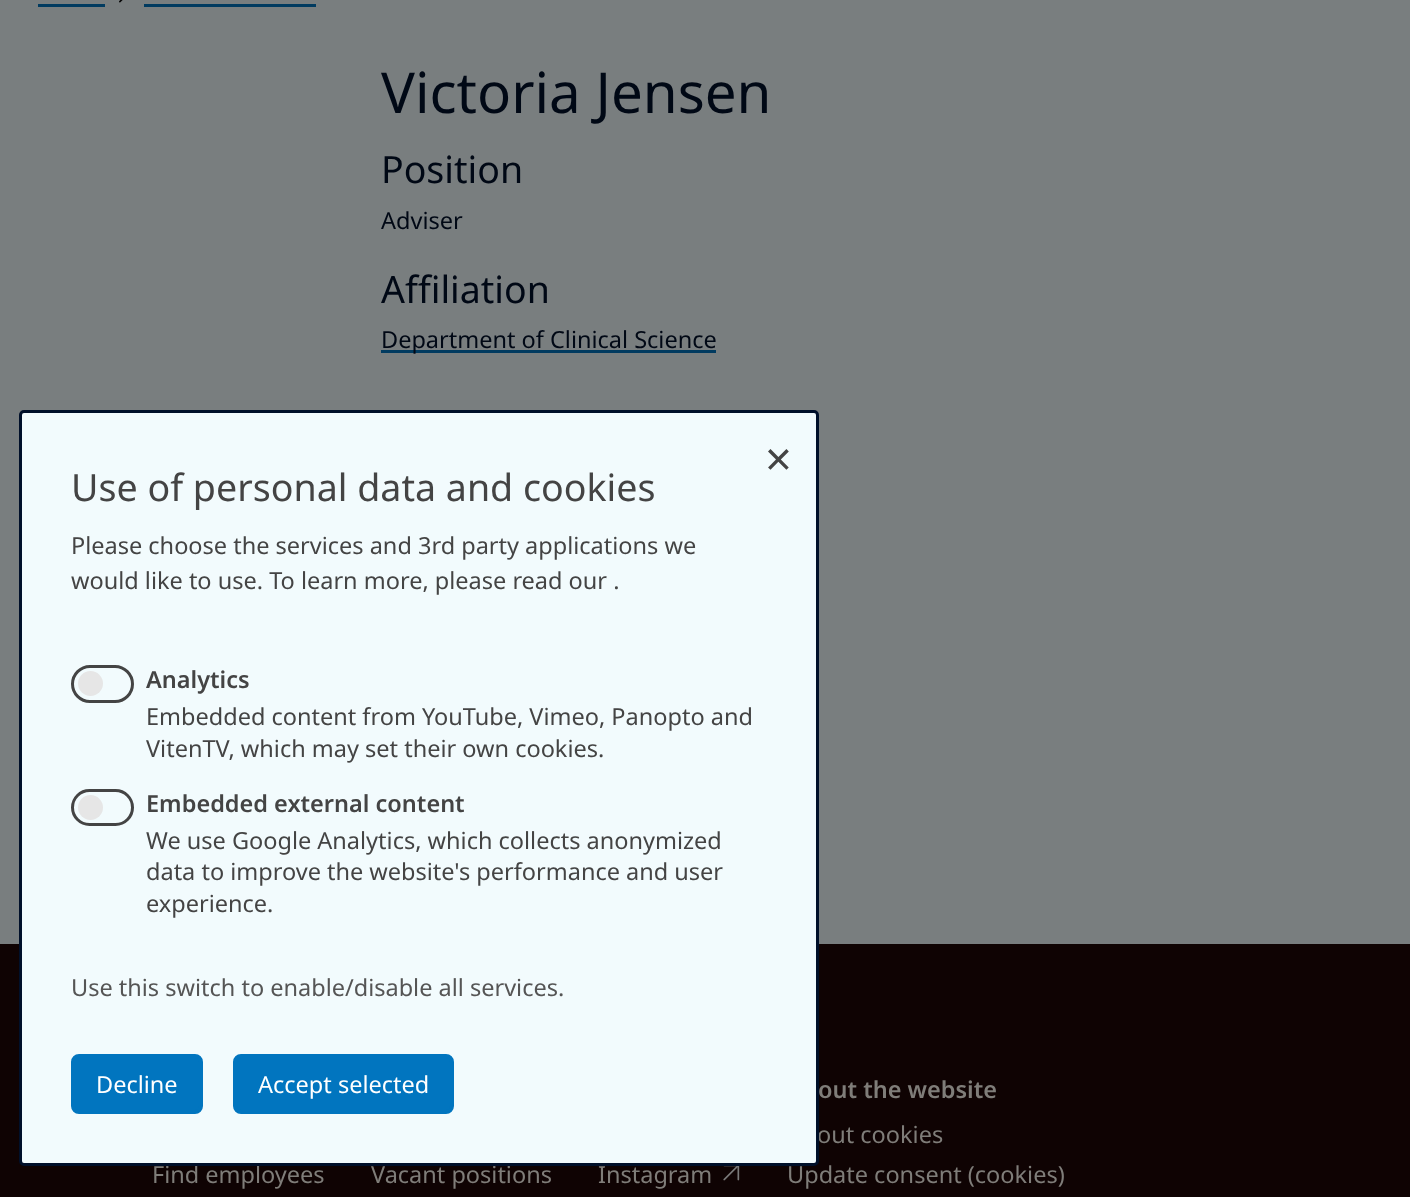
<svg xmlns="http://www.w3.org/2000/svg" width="1410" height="1197">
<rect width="100%" height="100%" fill="#797e7f"/>
<image x="119" y="0" width="4" height="3" href="media/1.png"/>
<rect x="38" y="4" width="67" height="3" fill="#013b60"/>
<rect x="144" y="4" width="172" height="3" fill="#013b60"/>
<text x="381" y="113" style="font-family:Noto Sans;font-size:56.5px;fill:#000815">Victoria Jensen</text>
<text x="381" y="183" style="font-family:Noto Sans;font-size:37.5px;fill:#000815">Position</text>
<text x="381" y="229" style="font-family:Noto Sans;font-size:23.5px;fill:#000815">Adviser</text>
<text x="381" y="303" style="font-family:Noto Sans;font-size:37.5px;fill:#000815">Affiliation</text>
<rect x="381" y="350" width="335" height="3" fill="#013b60"/>
<text x="381" y="348" style="font-family:Noto Sans;font-size:23.5px;fill:#000815">Department of Clinical Science</text>
<rect y="944" width="1410" height="253" fill="#0f0303"/>
<text x="152" y="1183" style="font-family:Noto Sans;font-size:23.5px;fill:#7f7d79">Find employees</text>
<text x="371" y="1183" style="font-family:Noto Sans;font-size:23.5px;fill:#7f7d79">Vacant positions</text>
<text x="598" y="1183" style="font-family:Noto Sans;font-size:23.5px;fill:#7f7d79">Instagram</text>
<image x="723" y="1166" width="17" height="15" href="media/2.png"/>
<text x="818" y="1098" style="font-family:Noto Sans;font-size:23.5px;font-weight:600;fill:#7f7d79">out the website</text>
<text x="817" y="1143" style="font-family:Noto Sans;font-size:23.5px;fill:#7f7d79">out cookies</text>
<text x="787" y="1183" style="font-family:Noto Sans;font-size:23.5px;fill:#7f7d79">Update consent (cookies)</text>
<rect x="20.5" y="411.5" width="797" height="753" rx="3.5" fill="#f2fbfd" stroke="#00102a" stroke-width="3"/>
<text x="765" y="476" style="font-family:Noto Sans;font-size:47px;fill:#444">×</text>
<text x="71" y="501" style="font-family:Noto Sans;font-size:37.6px;fill:#444">Use of personal data and cookies</text>
<text x="71" y="554" style="font-family:Noto Sans;font-size:23.5px;fill:#444">Please choose the services and 3rd party applications we</text>
<text x="71" y="589" style="font-family:Noto Sans;font-size:23.5px;fill:#444">would like to use. To learn more, please read our .</text>
<rect x="72.5" y="666.5" width="60" height="35" rx="17.5" fill="none" stroke="#444" stroke-width="3"/>
<circle cx="90.5" cy="683.5" r="12.5" fill="#e6e6e6"/>
<text x="146" y="688" style="font-family:Noto Sans;font-size:23.5px;font-weight:600;fill:#444">Analytics</text>
<text x="146" y="725" style="font-family:Noto Sans;font-size:23.5px;fill:#444">Embedded content from YouTube, Vimeo, Panopto and</text>
<text x="146" y="757" style="font-family:Noto Sans;font-size:23.5px;fill:#444">VitenTV, which may set their own cookies.</text>
<rect x="72.5" y="790.5" width="60" height="34" rx="17" fill="none" stroke="#444" stroke-width="3"/>
<circle cx="90.5" cy="807.5" r="12.5" fill="#e6e6e6"/>
<text x="146" y="812" style="font-family:Noto Sans;font-size:23.5px;font-weight:600;fill:#444">Embedded external content</text>
<text x="146" y="849" style="font-family:Noto Sans;font-size:23.5px;fill:#444">We use Google Analytics, which collects anonymized</text>
<text x="146" y="880" style="font-family:Noto Sans;font-size:23.5px;fill:#444">data to improve the website's performance and user</text>
<text x="146" y="912" style="font-family:Noto Sans;font-size:23.5px;fill:#444">experience.</text>
<text x="71" y="996" style="font-family:Noto Sans;font-size:23.5px;fill:#555">Use this switch to enable/disable all services.</text>
<rect x="73" y="1056" width="128" height="56" rx="6" fill="#0175bf" stroke="#0175bf" stroke-width="4"/>
<text x="96" y="1093" style="font-family:Noto Sans;font-size:23.5px;fill:#fff">Decline</text>
<rect x="235" y="1056" width="217" height="56" rx="6" fill="#0175bf" stroke="#0175bf" stroke-width="4"/>
<text x="258" y="1093" style="font-family:Noto Sans;font-size:23.5px;fill:#fff">Accept selected</text>
</svg>
